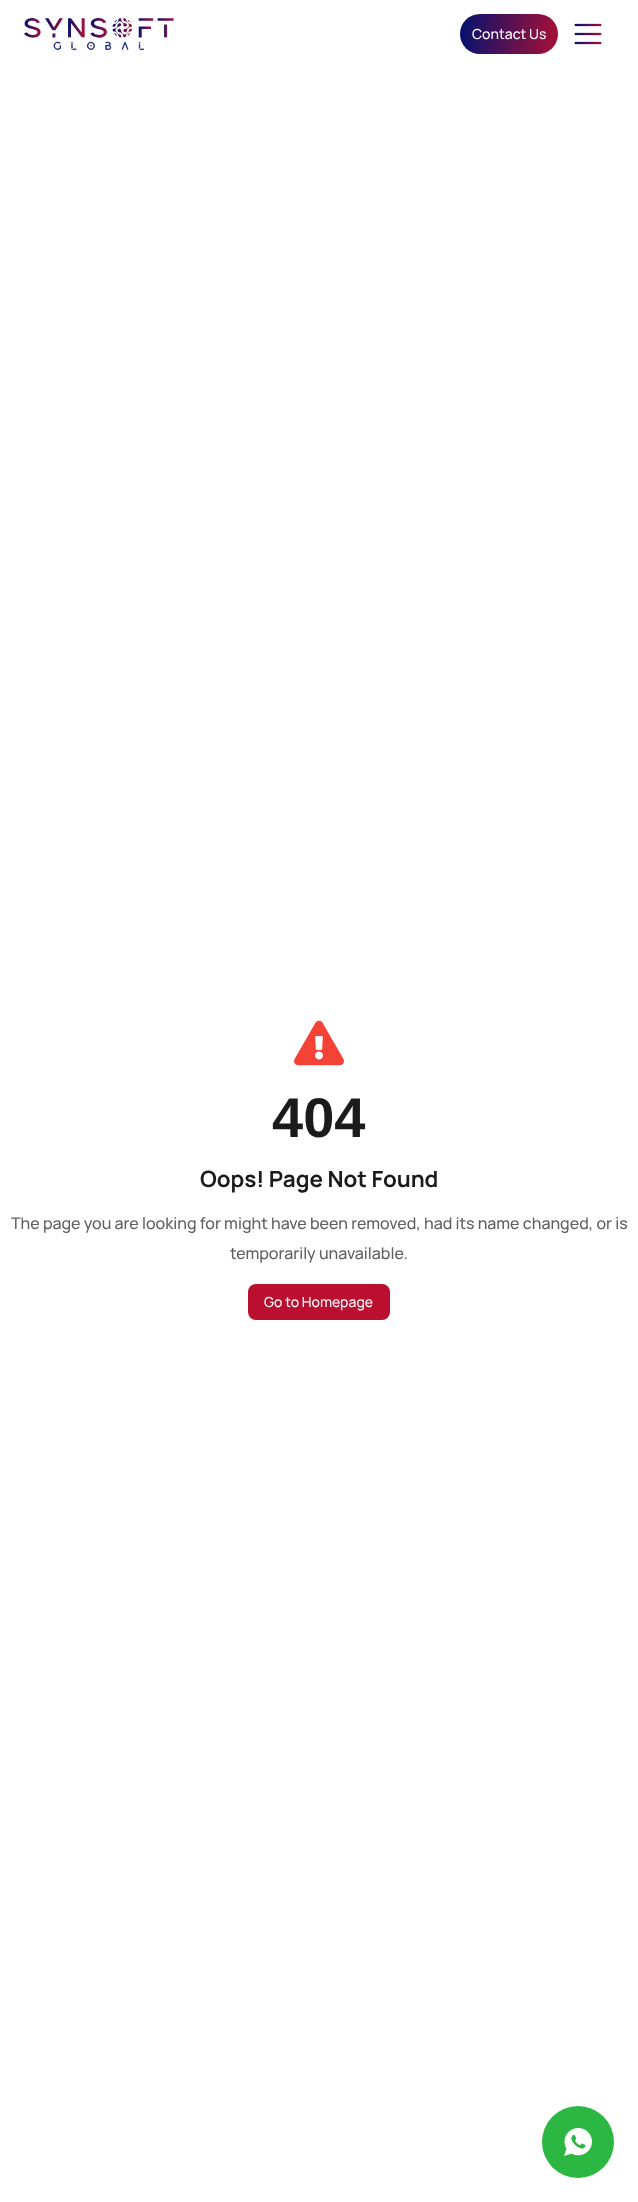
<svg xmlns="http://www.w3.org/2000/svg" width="638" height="2202">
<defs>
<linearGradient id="g1" gradientUnits="userSpaceOnUse" x1="457" y1="30" x2="570" y2="39"><stop offset="0" stop-color="#001270"/><stop offset="1" stop-color="#bb0f30"/></linearGradient>
</defs>
<rect width="100%" height="100%" fill="#fff"/>
<image x="24" y="18" width="150" height="32" href="media/1.png"/>
<rect x="460" y="14" width="98" height="40" rx="20" fill="url(#g1)"/>
<text x="472" y="39" style="font-family:Manrope;font-size:14px;font-weight:500;fill:#fff">Contact Us</text>
<image x="574" y="23" width="28" height="22" href="media/2.png"/>
<image x="294" y="1020" width="50" height="46" href="media/3.png"/>
<text x="272" y="1137" style="font-family:Liberation Sans;font-size:56px;font-weight:bold;fill:#1b1b1b">404</text>
<text x="200" y="1187" style="font-family:Manrope;font-size:22.4px;font-weight:bold;fill:#1b1b1b">Oops! Page Not Found</text>
<text x="11" y="1229" style="font-family:Manrope;font-size:16px;font-weight:500;fill:#5f5f5f">The page you are looking for might have been removed, had its name changed, or is</text>
<text x="230" y="1259" style="font-family:Manrope;font-size:16px;font-weight:500;fill:#5f5f5f">temporarily unavailable.</text>
<rect x="248" y="1284" width="142" height="36" rx="8" fill="#bb0f30"/>
<text x="264" y="1307" style="font-family:Manrope;font-size:14px;font-weight:500;fill:#fff">Go to Homepage</text>
<circle cx="578" cy="2142" r="36" fill="#2cb742"/>
<image x="564" y="2128" width="28" height="28" href="media/4.png"/>
</svg>
